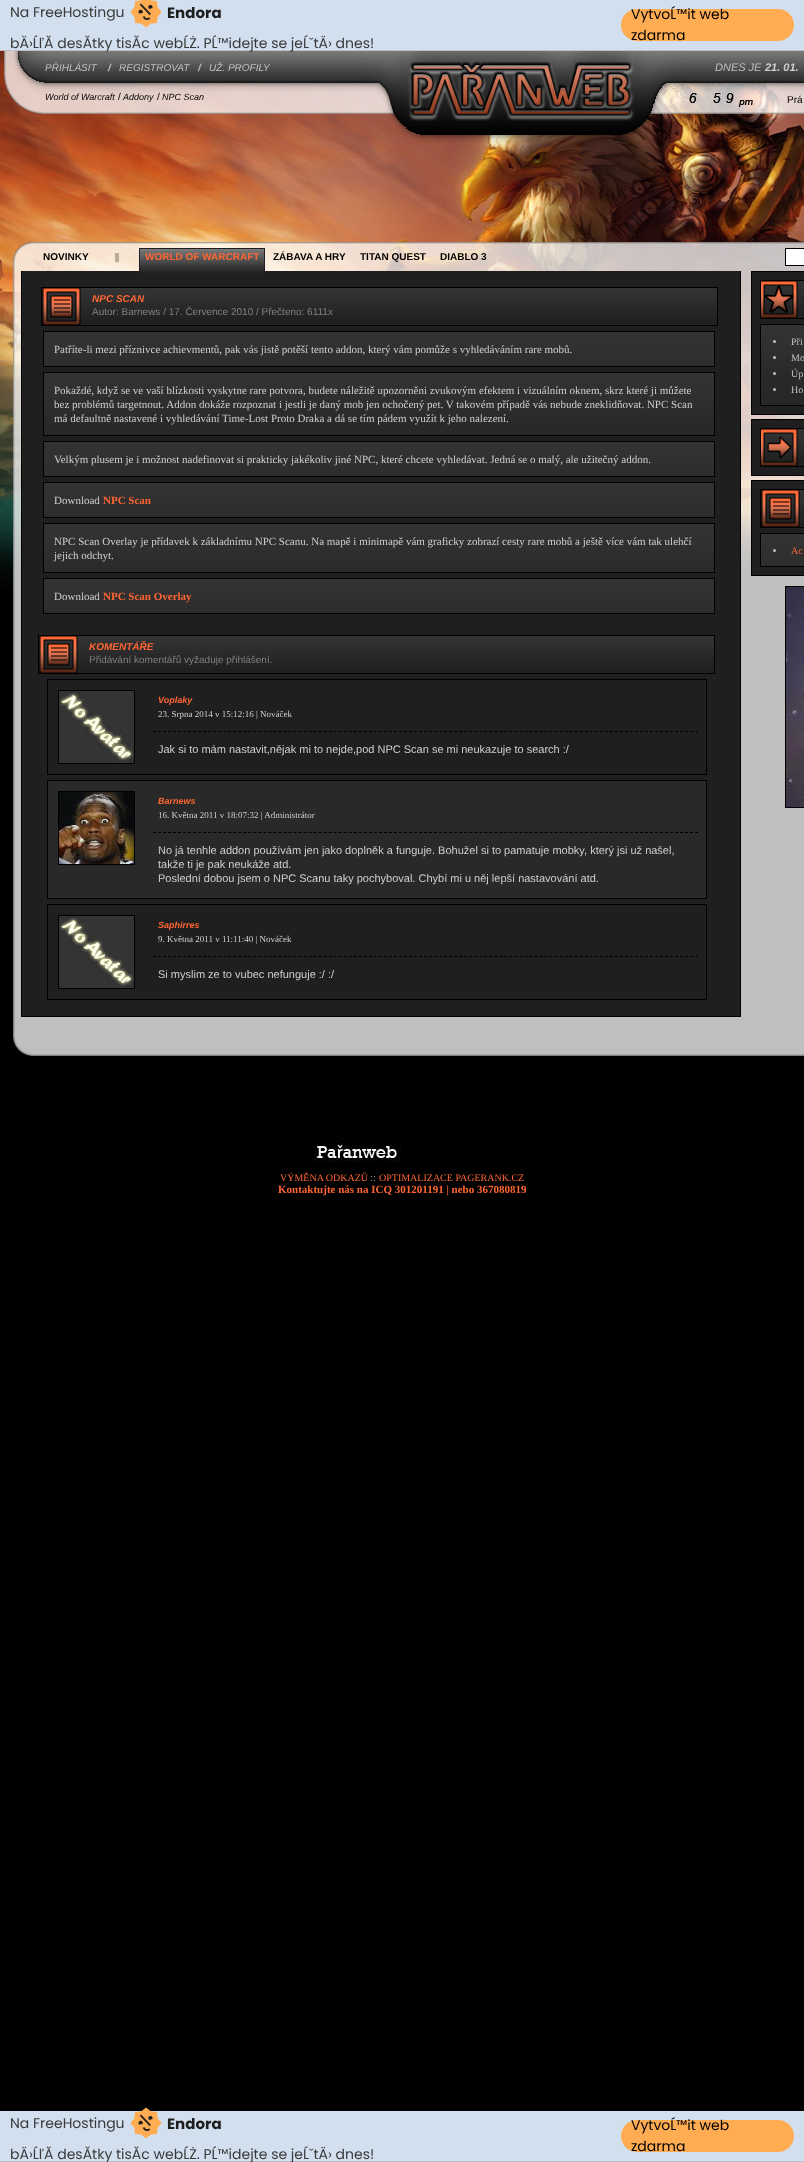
<svg xmlns="http://www.w3.org/2000/svg" width="804" height="2162">
<rect width="100%" height="100%" fill="#000"/>
<image x="0" y="51" width="804" height="537" href="media/1.png"/>
<rect width="804" height="50" fill="#d2dfef"/>
<rect y="50" width="804" height="1" fill="#bebfc4"/>
<text x="10" y="17" style="font-family:Poppins;font-size:14px;fill:#3a3a3a">Na FreeHostingu</text>
<image x="130" y="0" width="32" height="28" href="media/2.png"/>
<text x="167" y="18" style="font-family:Poppins;font-size:15px;font-weight:bold;fill:#1e1e1e">Endora</text>
<image x="0" y="51" width="405" height="70" href="media/3.png"/>
<text x="10" y="48" style="font-family:Poppins;font-size:14px;fill:#3a3a3a">bÄ›ĹľĂ desĂtky tisĂc webĹŻ. PĹ™idejte se jeĹˇtÄ› dnes!</text>
<rect x="621" y="9" width="173" height="32" rx="16" fill="#ffac52"/>
<text x="631" y="19" style="font-family:Poppins;font-size:14px;fill:#000">VytvoĹ™it web</text>
<text x="631" y="40" style="font-family:Poppins;font-size:14px;fill:#000">zdarma</text>
<text x="45" y="71" style="font-family:Liberation Sans;font-size:10px;font-style:italic;fill:#c0c0c0">PŘIHLÁSIT</text>
<text x="108" y="71" style="font-family:Liberation Sans;font-size:10px;font-weight:bold;font-style:italic;fill:#c0c0c0">/</text>
<text x="119" y="71" style="font-family:Liberation Sans;font-size:10px;font-style:italic;fill:#c0c0c0">REGISTROVAT</text>
<text x="198" y="71" style="font-family:Liberation Sans;font-size:10px;font-weight:bold;font-style:italic;fill:#c0c0c0">/</text>
<text x="209" y="71" style="font-family:Liberation Sans;font-size:10px;font-style:italic;fill:#c0c0c0">UŽ. PROFILY</text>
<text x="45" y="100" style="font-family:Liberation Sans;font-size:9px;font-style:italic;fill:#000">World of Warcraft</text>
<text x="118" y="100" style="font-family:Liberation Sans;font-size:10px;fill:#000">/</text>
<text x="123" y="100" style="font-family:Liberation Sans;font-size:9px;font-style:italic;fill:#000">Addony</text>
<text x="157" y="100" style="font-family:Liberation Sans;font-size:10px;fill:#000">/</text>
<text x="162" y="100" style="font-family:Liberation Sans;font-size:9px;font-style:italic;fill:#000">NPC Scan</text>
<rect x="413" y="65" width="216" height="49" fill="#f63"/>
<image x="405" y="51" width="230" height="70" href="media/4.png"/>
<image x="635" y="51" width="169" height="70" href="media/5.png"/>
<text x="715" y="71" style="font-family:Liberation Sans;font-size:11px;font-style:italic;fill:#c0c0c0">DNES JE</text>
<text x="765" y="71" style="font-family:Liberation Sans;font-size:11px;font-weight:bold;font-style:italic;fill:#cfcfcf">21. 01.</text>
<image x="689" y="93" width="8" height="10" href="media/6.png"/>
<image x="713" y="93" width="8" height="10" href="media/7.png"/>
<image x="726" y="93" width="8" height="10" href="media/8.png"/>
<image x="738" y="100" width="15" height="7" href="media/9.png"/>
<text x="787" y="103" style="font-family:Liberation Sans;font-size:10px;fill:#000">Prá</text>
<image x="392" y="121" width="13" height="14" href="media/10.png"/>
<image x="405" y="121" width="230" height="22" href="media/11.png"/>
<image x="635" y="121" width="16" height="16" href="media/12.png"/>
<image x="13" y="242" width="791" height="29" href="media/13.png"/>
<text x="43" y="260" style="font-family:Liberation Sans;font-size:10px;font-weight:bold;fill:#000">NOVINKY</text>
<text x="115" y="260" style="font-family:Liberation Serif;font-size:10px;fill:#000">||</text>
<image x="13" y="271" width="791" height="747" href="media/15.png"/>
<rect x="22" y="271" width="718" height="745" fill="#1f1f1f"/>
<image x="140" y="249" width="124" height="25" href="media/14.png"/>
<rect x="139.5" y="248.5" width="125" height="28" fill="none" stroke="#1f1f1f"/>
<text x="145" y="260" style="font-family:Liberation Sans;font-size:10px;font-weight:bold;fill:#f63">WORLD OF WARCRAFT</text>
<text x="273" y="260" style="font-family:Liberation Sans;font-size:10px;font-weight:bold;fill:#000">ZÁBAVA A HRY</text>
<text x="360" y="260" style="font-family:Liberation Sans;font-size:10px;font-weight:bold;fill:#000">TITAN QUEST</text>
<text x="440" y="260" style="font-family:Liberation Sans;font-size:10px;font-weight:bold;fill:#000">DIABLO 3</text>
<rect x="785.5" y="248.5" width="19" height="17" fill="#fff" stroke="#000"/>
<rect x="740" y="271" width="1" height="746" fill="#000"/>
<rect x="21" y="1016" width="720" height="1" fill="#000"/>
<rect x="21" y="271" width="1" height="746" fill="#000"/>
<rect x="43" y="288" width="674" height="37" fill="#f63"/>
<image x="42" y="288" width="675" height="37" href="media/16.png"/>
<rect x="41.5" y="287.5" width="676" height="38" fill="none" stroke="#000"/>
<text x="92" y="302" style="font-family:Liberation Sans;font-size:10px;font-weight:bold;font-style:italic;fill:#f63">NPC SCAN</text>
<text x="92" y="315" style="font-family:Liberation Sans;font-size:10px;fill:#808080">Autor: Barnews / 17. Července 2010 / Přečteno: 6111x</text>
<image x="44" y="332" width="670" height="34" href="media/17.png"/>
<rect x="43.5" y="331.5" width="671" height="35" fill="none" stroke="#000"/>
<text x="54" y="353" style="font-family:Liberation Serif;font-size:11px;fill:#cfcfcf">Patříte-li mezi příznivce achievmentů, pak vás jistě potěší tento addon, který vám pomůže s vyhledáváním rare mobů.</text>
<image x="44" y="373" width="670" height="62" href="media/18.png"/>
<rect x="43.5" y="372.5" width="671" height="63" fill="none" stroke="#000"/>
<text x="54" y="394" style="font-family:Liberation Serif;font-size:11px;fill:#cfcfcf">Pokaždé, když se ve vaší blízkosti vyskytne rare potvora, budete náležitě upozorněni zvukovým efektem i vizuálním oknem, skrz které ji můžete</text>
<text x="54" y="408" style="font-family:Liberation Serif;font-size:11px;fill:#cfcfcf">bez problémů targetnout. Addon dokáže rozpoznat i jestli je daný mob jen ochočený pet. V takovém případě vás nebude zneklidňovat. NPC Scan</text>
<text x="54" y="422" style="font-family:Liberation Serif;font-size:11px;fill:#cfcfcf">má defaultně nastavené i vyhledávání Time-Lost Proto Draka a dá se tím pádem využít k jeho nalezení.</text>
<image x="44" y="442" width="670" height="34" href="media/17.png"/>
<rect x="43.5" y="441.5" width="671" height="35" fill="none" stroke="#000"/>
<text x="54" y="463" style="font-family:Liberation Serif;font-size:11px;fill:#cfcfcf">Velkým plusem je i možnost nadefinovat si prakticky jakékoliv jiné NPC, které chcete vyhledávat. Jedná se o malý, ale užitečný addon.</text>
<image x="44" y="483" width="670" height="34" href="media/17.png"/>
<rect x="43.5" y="482.5" width="671" height="35" fill="none" stroke="#000"/>
<text x="54" y="504" style="font-family:Liberation Serif;font-size:11px;fill:#cfcfcf">Download</text>
<text x="103" y="504" style="font-family:Liberation Serif;font-size:11px;font-weight:bold;fill:#f63">NPC Scan</text>
<image x="44" y="524" width="670" height="48" href="media/19.png"/>
<rect x="43.5" y="523.5" width="671" height="49" fill="none" stroke="#000"/>
<text x="54" y="545" style="font-family:Liberation Serif;font-size:11px;fill:#cfcfcf">NPC Scan Overlay je přídavek k základnímu NPC Scanu. Na mapě i minimapě vám graficky zobrazí cesty rare mobů a ještě více vám tak ulehčí</text>
<text x="54" y="559" style="font-family:Liberation Serif;font-size:11px;fill:#cfcfcf">jejich odchyt.</text>
<image x="44" y="579" width="670" height="34" href="media/17.png"/>
<rect x="43.5" y="578.5" width="671" height="35" fill="none" stroke="#000"/>
<text x="54" y="600" style="font-family:Liberation Serif;font-size:11px;fill:#cfcfcf">Download</text>
<text x="103" y="600" style="font-family:Liberation Serif;font-size:11px;font-weight:bold;fill:#f63">NPC Scan Overlay</text>
<rect x="40" y="636" width="674" height="37" fill="#f63"/>
<image x="39" y="636" width="675" height="37" href="media/16.png"/>
<rect x="38.5" y="635.5" width="676" height="38" fill="none" stroke="#000"/>
<text x="89" y="650" style="font-family:Liberation Sans;font-size:10px;font-weight:bold;font-style:italic;fill:#f63">KOMENTÁŘE</text>
<text x="89" y="663" style="font-family:Liberation Sans;font-size:10px;fill:#808080">Přidávání komentářů vyžaduje přihlášení.</text>
<rect x="47.5" y="679.5" width="659" height="95" fill="none" stroke="#000"/>
<rect x="58.5" y="690.5" width="76" height="73" fill="none" stroke="#000"/>
<image x="59" y="691" width="75" height="72" href="media/20.png"/>
<path d="M153 731.5h545" fill="none" stroke="#000" stroke-dasharray="3 2.02"/>
<text x="158" y="703" style="font-family:Liberation Sans;font-size:9px;font-weight:bold;font-style:italic;fill:#f63">Voplaky</text>
<text x="158" y="717" style="font-family:Liberation Serif;font-size:9px;fill:#cfcfcf">23. Srpna 2014 v 15:12:16 | Nováček</text>
<text x="158" y="753" style="font-family:Liberation Sans;font-size:11px;fill:#cfcfcf">Jak si to mám nastavit,nějak mi to nejde,pod NPC Scan se mi neukazuje to search :/</text>
<rect x="47.5" y="780.5" width="659" height="118" fill="#292929" stroke="#000"/>
<rect x="58.5" y="791.5" width="76" height="73" fill="none" stroke="#000"/>
<image x="59" y="792" width="75" height="72" href="media/21.png"/>
<path d="M153 832.5h545" fill="none" stroke="#000" stroke-dasharray="3 2.02"/>
<text x="158" y="804" style="font-family:Liberation Sans;font-size:9px;font-weight:bold;font-style:italic;fill:#f63">Barnews</text>
<text x="158" y="818" style="font-family:Liberation Serif;font-size:9px;fill:#cfcfcf">16. Května 2011 v 18:07:32 | Administrátor</text>
<text x="158" y="854" style="font-family:Liberation Sans;font-size:11px;fill:#cfcfcf">No já tenhle addon používám jen jako doplněk a funguje. Bohužel si to pamatuje mobky, který jsi už našel,</text>
<text x="158" y="868" style="font-family:Liberation Sans;font-size:11px;fill:#cfcfcf">takže ti je pak neukáže atd.</text>
<text x="158" y="882" style="font-family:Liberation Sans;font-size:11px;fill:#cfcfcf">Poslední dobou jsem o NPC Scanu taky pochyboval. Chybí mi u něj lepší nastavování atd.</text>
<rect x="47.5" y="904.5" width="659" height="95" fill="none" stroke="#000"/>
<rect x="58.5" y="915.5" width="76" height="73" fill="none" stroke="#000"/>
<image x="59" y="916" width="75" height="72" href="media/20.png"/>
<path d="M153 956.5h545" fill="none" stroke="#000" stroke-dasharray="3 2.02"/>
<text x="158" y="928" style="font-family:Liberation Sans;font-size:9px;font-weight:bold;font-style:italic;fill:#f63">Saphirres</text>
<text x="158" y="942" style="font-family:Liberation Serif;font-size:9px;fill:#cfcfcf">9. Května 2011 v 11:11:40 | Nováček</text>
<text x="158" y="978" style="font-family:Liberation Sans;font-size:11px;fill:#cfcfcf">Si myslim ze to vubec nefunguje :/ :/</text>
<rect x="751.5" y="271.5" width="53" height="143" fill="#1f1f1f" stroke="#000"/>
<rect x="761" y="281" width="43" height="37" fill="#f63"/>
<image x="761" y="281" width="43" height="37" href="media/22.png"/>
<rect x="760.5" y="280.5" width="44" height="38" fill="none" stroke="#000"/>
<image x="761" y="325" width="43" height="80" href="media/23.png"/>
<rect x="760.5" y="324.5" width="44" height="81" fill="none" stroke="#000"/>
<circle cx="774.5" cy="341.5" r="1.5" fill="#c0c0c0"/>
<text x="791" y="345" style="font-family:Liberation Serif;font-size:10px;fill:#c0c0c0">Při</text>
<circle cx="774.5" cy="357.5" r="1.5" fill="#c0c0c0"/>
<text x="791" y="361" style="font-family:Liberation Serif;font-size:10px;fill:#c0c0c0">Mo</text>
<circle cx="774.5" cy="373.5" r="1.5" fill="#c0c0c0"/>
<text x="791" y="377" style="font-family:Liberation Serif;font-size:10px;fill:#c0c0c0">Úp</text>
<circle cx="774.5" cy="389.5" r="1.5" fill="#c0c0c0"/>
<text x="791" y="393" style="font-family:Liberation Serif;font-size:10px;fill:#c0c0c0">Ho</text>
<rect x="751.5" y="419.5" width="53" height="56" fill="#1f1f1f" stroke="#000"/>
<rect x="761" y="429" width="43" height="37" fill="#f63"/>
<image x="761" y="429" width="43" height="37" href="media/24.png"/>
<rect x="760.5" y="428.5" width="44" height="38" fill="none" stroke="#000"/>
<rect x="751.5" y="480.5" width="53" height="95" fill="#1f1f1f" stroke="#000"/>
<rect x="762" y="490" width="42" height="37" fill="#f63"/>
<image x="761" y="490" width="43" height="37" href="media/25.png"/>
<rect x="760.5" y="489.5" width="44" height="38" fill="none" stroke="#000"/>
<image x="761" y="534" width="43" height="32" href="media/26.png"/>
<rect x="760.5" y="533.5" width="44" height="33" fill="none" stroke="#000"/>
<circle cx="774.5" cy="550.5" r="1.5" fill="#c0c0c0"/>
<text x="791" y="554" style="font-family:Liberation Serif;font-size:10px;fill:#f63">Ac</text>
<rect x="785.5" y="586.5" width="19" height="221" fill="none" stroke="#000"/>
<image x="786" y="587" width="18" height="220" href="media/27.png"/>
<image x="13" y="1018" width="791" height="38" href="media/28.png"/>
<image x="313" y="1138" width="88" height="24" href="media/29.png"/>
<text x="280" y="1181" style="font-family:Liberation Serif;font-size:10px;fill:#f63">VÝMĚNA ODKAZŮ</text>
<text x="370" y="1181" style="font-family:Liberation Serif;font-size:11px;fill:#808080">::</text>
<text x="379" y="1181" style="font-family:Liberation Serif;font-size:10px;fill:#f63">OPTIMALIZACE PAGERANK.CZ</text>
<text x="278" y="1193" style="font-family:Liberation Serif;font-size:11px;font-weight:bold;fill:#f63">Kontaktujte nás na ICQ 301201191 | nebo 367080819</text>
<rect y="2111" width="804" height="50" fill="#d2dfef"/>
<rect y="2161" width="804" height="1" fill="#bebfc4"/>
<text x="10" y="2128" style="font-family:Poppins;font-size:14px;fill:#3a3a3a">Na FreeHostingu</text>
<image x="130" y="2107" width="32" height="32" href="media/30.png"/>
<text x="167" y="2129" style="font-family:Poppins;font-size:15px;font-weight:bold;fill:#1e1e1e">Endora</text>
<text x="10" y="2159" style="font-family:Poppins;font-size:14px;fill:#3a3a3a">bÄ›ĹľĂ desĂtky tisĂc webĹŻ. PĹ™idejte se jeĹˇtÄ› dnes!</text>
<rect x="621" y="2120" width="173" height="32" rx="16" fill="#ffac52"/>
<text x="631" y="2130" style="font-family:Poppins;font-size:14px;fill:#000">VytvoĹ™it web</text>
<text x="631" y="2151" style="font-family:Poppins;font-size:14px;fill:#000">zdarma</text>
</svg>
